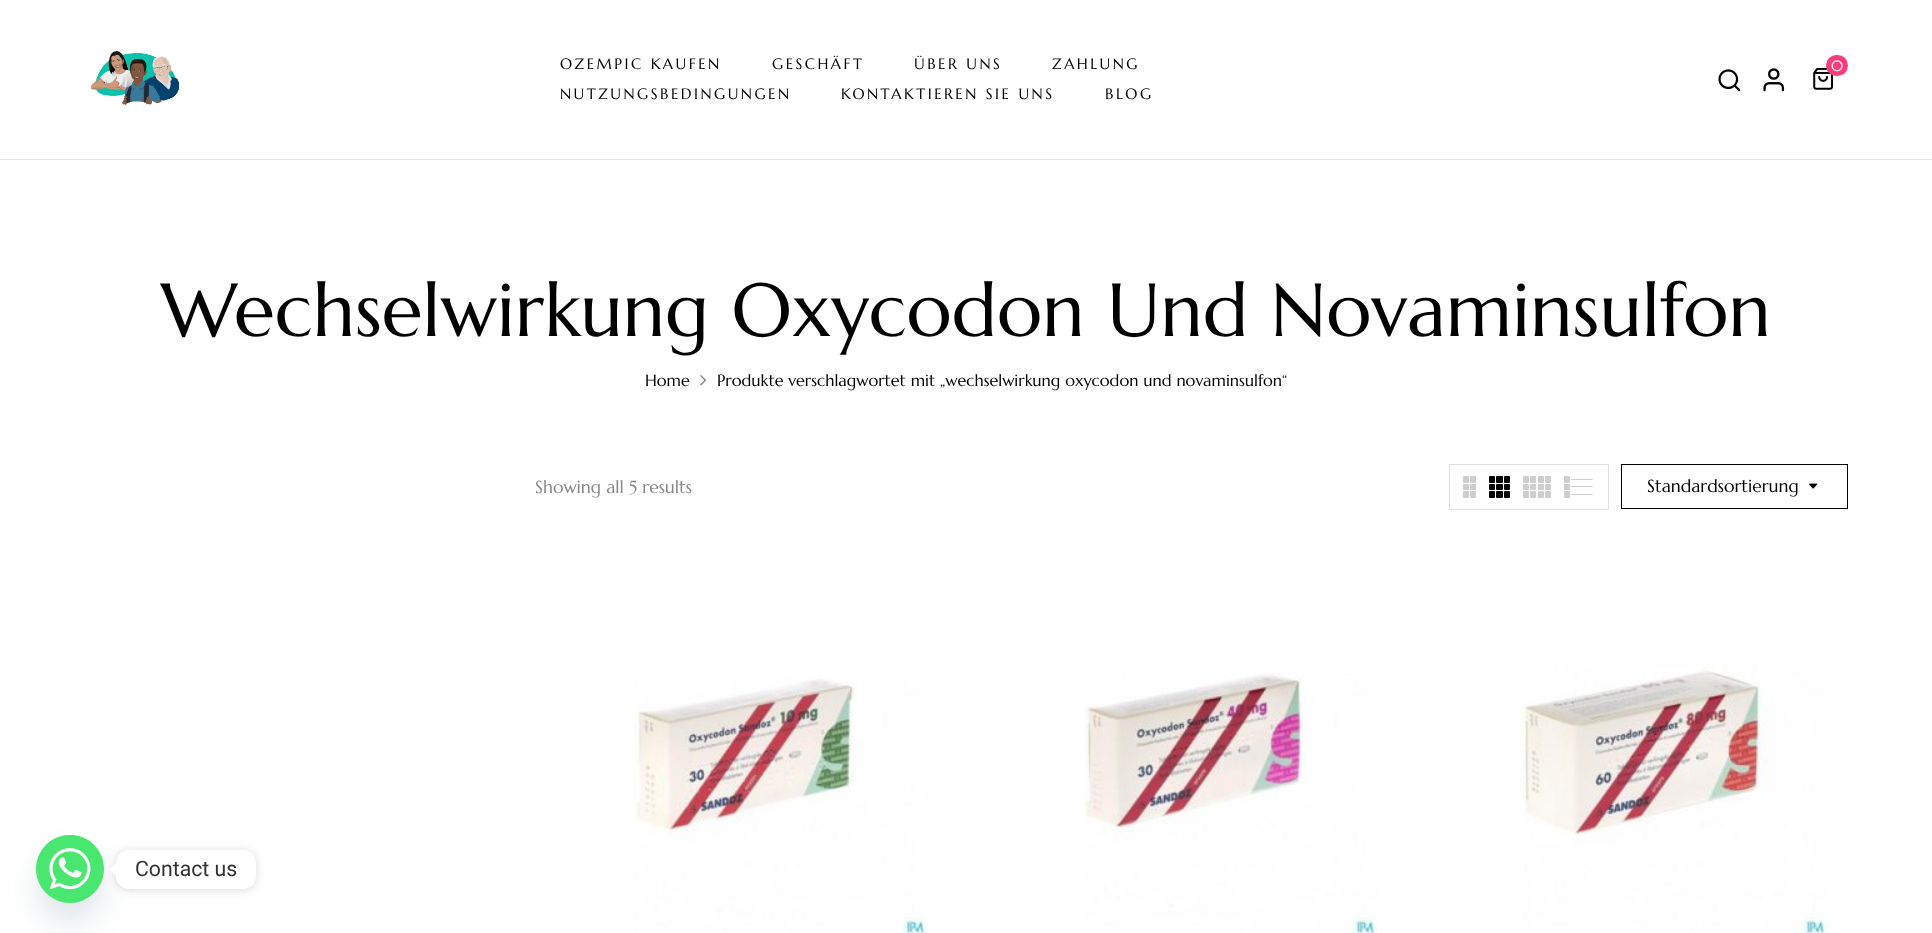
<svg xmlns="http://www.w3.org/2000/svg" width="1932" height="933">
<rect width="100%" height="100%" fill="#fff"/>
<rect y="159" width="1932" height="1" fill="#e5e5e5"/>
<image x="91" y="50" width="89" height="55" href="media/1.png"/>
<text x="560" y="69" style="font-family:Marcellus;font-size:15px;letter-spacing:2.5px;fill:#000">OZEMPIC KAUFEN</text>
<text x="772" y="69" style="font-family:Marcellus;font-size:15px;letter-spacing:2.5px;fill:#000">GESCHÄFT</text>
<text x="914" y="69" style="font-family:Marcellus;font-size:15px;letter-spacing:2.5px;fill:#000">ÜBER UNS</text>
<text x="1052" y="69" style="font-family:Marcellus;font-size:15px;letter-spacing:2.5px;fill:#000">ZAHLUNG</text>
<text x="560" y="99" style="font-family:Marcellus;font-size:15px;letter-spacing:2.5px;fill:#000">NUTZUNGSBEDINGUNGEN</text>
<text x="841" y="99" style="font-family:Marcellus;font-size:15px;letter-spacing:2.5px;fill:#000">KONTAKTIEREN SIE UNS</text>
<text x="1105" y="99" style="font-family:Marcellus;font-size:15px;letter-spacing:2.5px;fill:#000">BLOG</text>
<image x="1813" y="68" width="21" height="22" href="media/2.png"/>
<rect x="1826" y="55" width="22" height="21" rx="10.5" fill="#fa3c7a"/>
<text x="1831" y="71" style="font-family:Marcellus;font-size:15px;fill:#fff">0</text>
<image x="1718" y="69" width="23" height="23" href="media/3.png"/>
<image x="1763" y="68" width="22" height="24" href="media/4.png"/>
<text x="161" y="336" style="font-family:Marcellus;font-size:75px;fill:#000">Wechselwirkung Oxycodon Und Novaminsulfon</text>
<text x="645" y="386" style="font-family:Marcellus;font-size:16.25px;fill:#000">Home</text>
<image x="700" y="375" width="7" height="11" href="media/5.png"/>
<text x="717" y="386" style="font-family:Marcellus;font-size:16.25px;fill:#000">Produkte verschlagwortet mit „wechselwirkung oxycodon und novaminsulfon“</text>
<text x="535" y="493" style="font-family:Marcellus;font-size:17.5px;fill:#868686">Showing all 5 results</text>
<rect x="1449.5" y="464.5" width="159" height="45" fill="none" stroke="#e1e1e1"/>
<rect x="1463" y="476" width="6" height="7" rx="1" fill="#cecece"/>
<rect x="1470" y="476" width="6" height="7" rx="1" fill="#cecece"/>
<rect x="1463" y="484" width="6" height="6" rx="1" fill="#cecece"/>
<rect x="1470" y="484" width="6" height="6" rx="1" fill="#cecece"/>
<rect x="1463" y="491" width="6" height="7" rx="1" fill="#cecece"/>
<rect x="1470" y="491" width="6" height="7" rx="1" fill="#cecece"/>
<rect x="1489" y="476" width="6" height="7" rx="1" fill="#000"/>
<rect x="1496" y="476" width="7" height="7" rx="1" fill="#000"/>
<rect x="1504" y="476" width="6" height="7" rx="1" fill="#000"/>
<rect x="1489" y="484" width="6" height="6" rx="1" fill="#000"/>
<rect x="1496" y="484" width="7" height="6" rx="1" fill="#000"/>
<rect x="1504" y="484" width="6" height="6" rx="1" fill="#000"/>
<rect x="1489" y="491" width="6" height="7" rx="1" fill="#000"/>
<rect x="1496" y="491" width="7" height="7" rx="1" fill="#000"/>
<rect x="1504" y="491" width="6" height="7" rx="1" fill="#000"/>
<rect x="1523" y="476" width="6" height="7" rx="1" fill="#cecece"/>
<rect x="1530" y="476" width="6" height="7" rx="1" fill="#cecece"/>
<rect x="1538" y="476" width="6" height="7" rx="1" fill="#cecece"/>
<rect x="1545" y="476" width="6" height="7" rx="1" fill="#cecece"/>
<rect x="1523" y="484" width="6" height="6" rx="1" fill="#cecece"/>
<rect x="1530" y="484" width="6" height="6" rx="1" fill="#cecece"/>
<rect x="1538" y="484" width="6" height="6" rx="1" fill="#cecece"/>
<rect x="1545" y="484" width="6" height="6" rx="1" fill="#cecece"/>
<rect x="1523" y="491" width="6" height="7" rx="1" fill="#cecece"/>
<rect x="1530" y="491" width="6" height="7" rx="1" fill="#cecece"/>
<rect x="1538" y="491" width="6" height="7" rx="1" fill="#cecece"/>
<rect x="1545" y="491" width="6" height="7" rx="1" fill="#cecece"/>
<rect x="1564" y="476" width="6" height="7" rx="1" fill="#cecece"/>
<rect x="1571" y="479" width="22" height="1" rx="0.5" fill="#cecece"/>
<rect x="1564" y="484" width="6" height="6" rx="1" fill="#cecece"/>
<rect x="1571" y="486" width="22" height="1" rx="0.5" fill="#cecece"/>
<rect x="1564" y="491" width="6" height="7" rx="1" fill="#cecece"/>
<rect x="1571" y="494" width="22" height="1" rx="0.5" fill="#cecece"/>
<rect x="1621.5" y="464.5" width="226" height="44" fill="none" stroke="#000"/>
<text x="1647" y="492" style="font-family:Marcellus;font-size:17.5px;fill:#000">Standardsortierung</text>
<image x="1809" y="483" width="9" height="6" href="media/6.png"/>
<image x="634" y="678" width="294" height="255" href="media/7.png"/>
<image x="1084" y="673" width="294" height="260" href="media/8.png"/>
<image x="1520" y="663" width="308" height="270" href="media/9.png"/>
<rect x="36" y="855" width="68" height="68" rx="34" fill="#49687e29" filter="blur(15px)"/>
<circle cx="70" cy="869" r="34" fill="#49e670"/>
<image x="36" y="835" width="68" height="55" href="media/10.png"/>
<rect x="116" y="851" width="140" height="39" rx="13" fill="#00000026" filter="blur(5px)"/>
<rect x="116" y="850" width="140" height="39" rx="13" fill="#fff"/>
<path d="M116 863v12.5l-6-6z" fill="#fff"/>
<text x="135" y="876" style="font-family:Roboto;font-size:21.25px;fill:#333">Contact us</text>
</svg>
